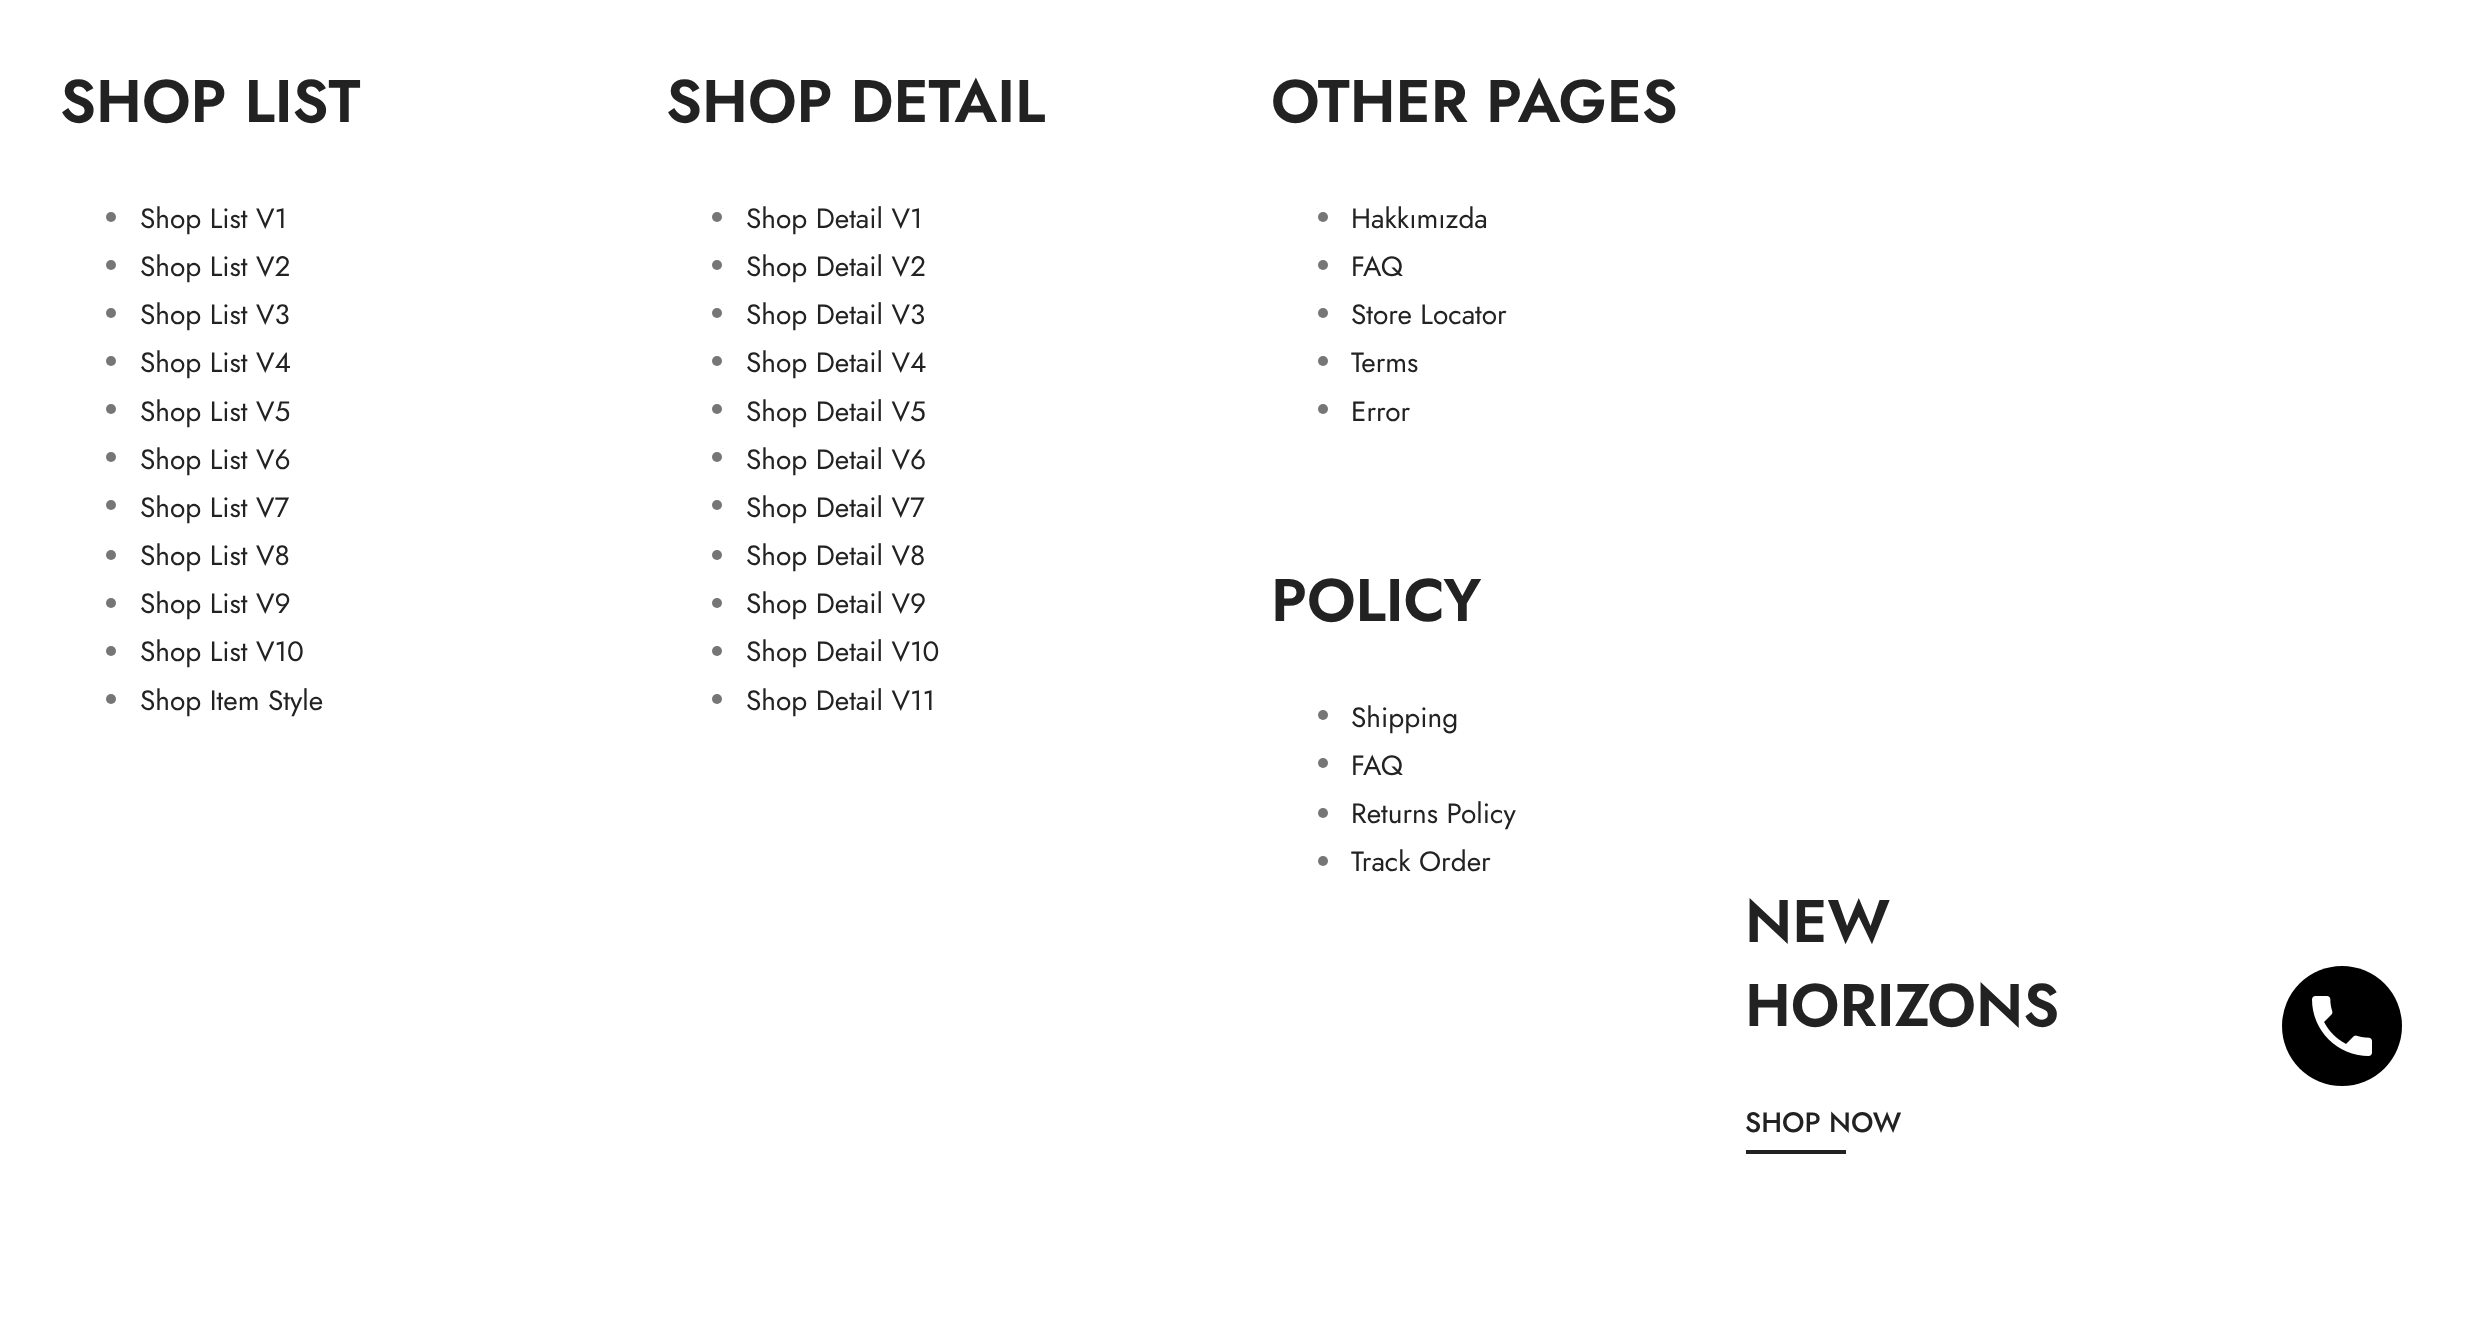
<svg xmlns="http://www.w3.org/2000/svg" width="2482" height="1325">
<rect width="100%" height="100%" fill="#fff"/>
<text x="60" y="122" style="font-family:Jost;font-size:60px;font-weight:600;fill:#222">SHOP LIST</text>
<circle cx="111" cy="217" r="5" fill="#767676"/>
<text x="140" y="228" style="font-family:Jost;font-size:28px;fill:#222">Shop List V1</text>
<circle cx="111" cy="265" r="5" fill="#767676"/>
<text x="140" y="276" style="font-family:Jost;font-size:28px;fill:#222">Shop List V2</text>
<circle cx="111" cy="313" r="5" fill="#767676"/>
<text x="140" y="324" style="font-family:Jost;font-size:28px;fill:#222">Shop List V3</text>
<circle cx="111" cy="361" r="5" fill="#767676"/>
<text x="140" y="372" style="font-family:Jost;font-size:28px;fill:#222">Shop List V4</text>
<circle cx="111" cy="409" r="5" fill="#767676"/>
<text x="140" y="421" style="font-family:Jost;font-size:28px;fill:#222">Shop List V5</text>
<circle cx="111" cy="457" r="5" fill="#767676"/>
<text x="140" y="469" style="font-family:Jost;font-size:28px;fill:#222">Shop List V6</text>
<circle cx="111" cy="505" r="5" fill="#767676"/>
<text x="140" y="517" style="font-family:Jost;font-size:28px;fill:#222">Shop List V7</text>
<circle cx="111" cy="555" r="5" fill="#767676"/>
<text x="140" y="565" style="font-family:Jost;font-size:28px;fill:#222">Shop List V8</text>
<circle cx="111" cy="603" r="5" fill="#767676"/>
<text x="140" y="613" style="font-family:Jost;font-size:28px;fill:#222">Shop List V9</text>
<circle cx="111" cy="651" r="5" fill="#767676"/>
<text x="140" y="661" style="font-family:Jost;font-size:28px;fill:#222">Shop List V10</text>
<circle cx="111" cy="699" r="5" fill="#767676"/>
<text x="140" y="710" style="font-family:Jost;font-size:28px;fill:#222">Shop Item Style</text>
<text x="666" y="122" style="font-family:Jost;font-size:60px;font-weight:600;fill:#222">SHOP DETAIL</text>
<circle cx="717" cy="217" r="5" fill="#767676"/>
<text x="746" y="228" style="font-family:Jost;font-size:28px;fill:#222">Shop Detail V1</text>
<circle cx="717" cy="265" r="5" fill="#767676"/>
<text x="746" y="276" style="font-family:Jost;font-size:28px;fill:#222">Shop Detail V2</text>
<circle cx="717" cy="313" r="5" fill="#767676"/>
<text x="746" y="324" style="font-family:Jost;font-size:28px;fill:#222">Shop Detail V3</text>
<circle cx="717" cy="361" r="5" fill="#767676"/>
<text x="746" y="372" style="font-family:Jost;font-size:28px;fill:#222">Shop Detail V4</text>
<circle cx="717" cy="409" r="5" fill="#767676"/>
<text x="746" y="421" style="font-family:Jost;font-size:28px;fill:#222">Shop Detail V5</text>
<circle cx="717" cy="457" r="5" fill="#767676"/>
<text x="746" y="469" style="font-family:Jost;font-size:28px;fill:#222">Shop Detail V6</text>
<circle cx="717" cy="505" r="5" fill="#767676"/>
<text x="746" y="517" style="font-family:Jost;font-size:28px;fill:#222">Shop Detail V7</text>
<circle cx="717" cy="555" r="5" fill="#767676"/>
<text x="746" y="565" style="font-family:Jost;font-size:28px;fill:#222">Shop Detail V8</text>
<circle cx="717" cy="603" r="5" fill="#767676"/>
<text x="746" y="613" style="font-family:Jost;font-size:28px;fill:#222">Shop Detail V9</text>
<circle cx="717" cy="651" r="5" fill="#767676"/>
<text x="746" y="661" style="font-family:Jost;font-size:28px;fill:#222">Shop Detail V10</text>
<circle cx="717" cy="699" r="5" fill="#767676"/>
<text x="746" y="710" style="font-family:Jost;font-size:28px;fill:#222">Shop Detail V11</text>
<text x="1271" y="122" style="font-family:Jost;font-size:60px;font-weight:600;fill:#222">OTHER PAGES</text>
<circle cx="1323" cy="217" r="5" fill="#767676"/>
<text x="1351" y="228" style="font-family:Jost;font-size:28px;fill:#222">Hakkımızda</text>
<circle cx="1323" cy="265" r="5" fill="#767676"/>
<text x="1351" y="276" style="font-family:Jost;font-size:28px;fill:#222">FAQ</text>
<circle cx="1323" cy="313" r="5" fill="#767676"/>
<text x="1351" y="324" style="font-family:Jost;font-size:28px;fill:#222">Store Locator</text>
<circle cx="1323" cy="361" r="5" fill="#767676"/>
<text x="1351" y="372" style="font-family:Jost;font-size:28px;fill:#222">Terms</text>
<circle cx="1323" cy="409" r="5" fill="#767676"/>
<text x="1351" y="421" style="font-family:Jost;font-size:28px;fill:#222">Error</text>
<text x="1271" y="621" style="font-family:Jost;font-size:60px;font-weight:600;fill:#222">POLICY</text>
<circle cx="1323" cy="715" r="5" fill="#767676"/>
<text x="1351" y="727" style="font-family:Jost;font-size:28px;fill:#222">Shipping</text>
<circle cx="1323" cy="763" r="5" fill="#767676"/>
<text x="1351" y="775" style="font-family:Jost;font-size:28px;fill:#222">FAQ</text>
<circle cx="1323" cy="813" r="5" fill="#767676"/>
<text x="1351" y="823" style="font-family:Jost;font-size:28px;fill:#222">Returns Policy</text>
<circle cx="1323" cy="861" r="5" fill="#767676"/>
<text x="1351" y="871" style="font-family:Jost;font-size:28px;fill:#222">Track Order</text>
<text x="1745" y="942" style="font-family:Jost;font-size:60px;font-weight:600;fill:#222">NEW</text>
<text x="1745" y="1026" style="font-family:Jost;font-size:60px;font-weight:600;fill:#222">HORIZONS</text>
<text x="1745" y="1132" style="font-family:Jost;font-size:28px;font-weight:500;fill:#222">SHOP NOW</text>
<rect x="1746" y="1150" width="100" height="4" fill="#222"/>
<circle cx="2342" cy="1026" r="60" fill="#000"/>
<image x="2312" y="996" width="60" height="60" href="media/1.png"/>
</svg>
